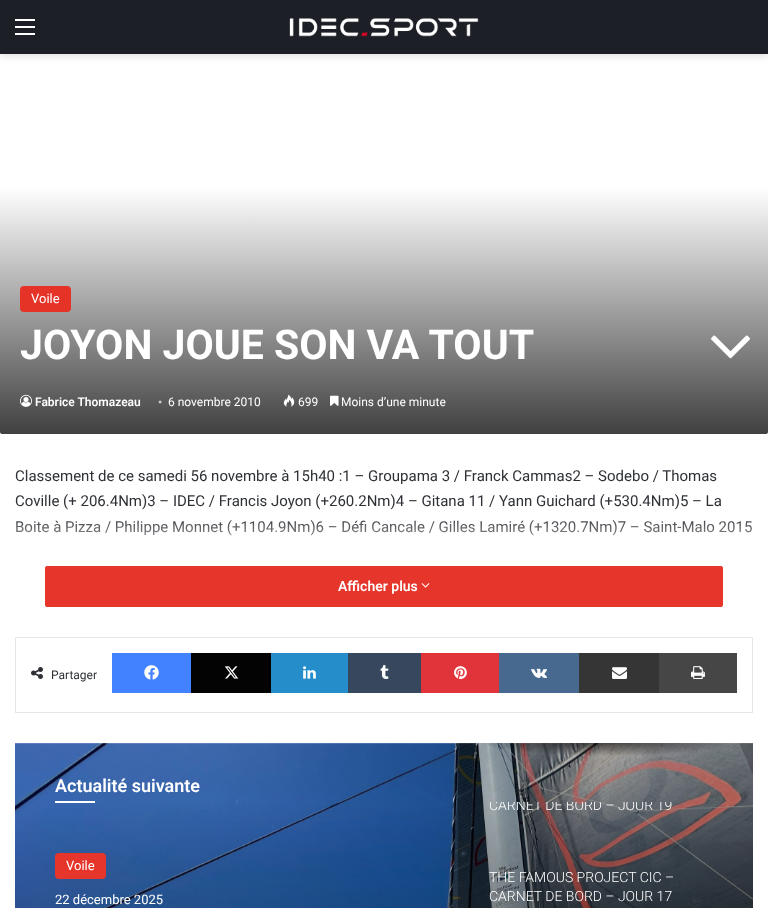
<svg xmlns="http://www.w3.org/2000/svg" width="768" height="908">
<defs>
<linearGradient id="g1" gradientUnits="userSpaceOnUse" x1="384" y1="187" x2="384" y2="434"><stop offset="0" stop-color="#fff"/><stop offset="1" stop-color="#404040"/></linearGradient>
<linearGradient id="g2" gradientUnits="userSpaceOnUse" x1="384" y1="464" x2="384" y2="566"><stop offset="0.5" stop-color="#fff" stop-opacity="0"/><stop offset="1" stop-color="#fff"/></linearGradient>
<radialGradient id="g3" gradientUnits="userSpaceOnUse" cx="0" cy="0" r="1" gradientTransform="matrix(209 0 0 28 606 738)"><stop offset="0" stop-color="#030303" stop-opacity="0.8"/><stop offset="0.65" stop-color="#030303" stop-opacity="0"/><stop offset="1" stop-color="#e5e5e5" stop-opacity="0"/></radialGradient>
<clipPath id="clip1"><rect x="489" y="802" width="234" height="14"/></clipPath>
</defs>
<rect width="100%" height="100%" fill="#fff"/>
<rect y="3" width="768" height="54" fill="#0000001a" filter="blur(3.5px)"/>
<rect width="768" height="54" fill="#1d1f27"/>
<rect x="15" y="26" width="20" height="2" fill="#fff"/>
<rect x="15" y="19" width="20" height="2" fill="#fff"/>
<rect x="15" y="33" width="20" height="2" fill="#fff"/>
<image x="289" y="18" width="190" height="19" href="media/1.png"/>
<path d="M0 187h768v245c0 1-1 2-2 2h-764c-1 0-2-1-2-2z" fill="url(#g1)"/>
<rect x="20" y="286" width="51" height="26" rx="4" fill="#e63328"/>
<text x="31" y="303" style="font-family:Roboto;font-size:13px;fill:#fff">Voile</text>
<text x="20" y="359" style="font-family:Roboto;font-size:41px;font-weight:bold;fill:#fff">JOYON JOUE SON VA TOUT</text>
<image x="20" y="394" width="12" height="13" href="media/2.png"/>
<text x="35" y="406" style="font-family:Roboto;font-size:12px;font-weight:600;fill:#fff">Fabrice Thomazeau</text>
<text x="158" y="406" style="font-family:Liberation Serif;font-size:12px;fill:#ccc">•</text>
<text x="168" y="406" style="font-family:Roboto;font-size:12px;fill:#fff">6 novembre 2010</text>
<image x="283" y="394" width="12" height="13" href="media/3.png"/>
<text x="298" y="406" style="font-family:Roboto;font-size:12px;fill:#fff">699</text>
<image x="330" y="395" width="9" height="11" href="media/4.png"/>
<text x="341" y="406" style="font-family:Roboto;font-size:12px;fill:#fff">Moins d’une minute</text>
<image x="711" y="335" width="39" height="24" href="media/5.png"/>
<text x="15" y="481" style="font-family:Roboto;font-size:15px;fill:#2e3136">Classement de ce samedi 56 novembre à 15h40 :1 – Groupama 3 / Franck Cammas2 – Sodebo / Thomas</text>
<text x="15" y="506" style="font-family:Roboto;font-size:15px;fill:#2e3136">Coville (+ 206.4Nm)3 – IDEC / Francis Joyon (+260.2Nm)4 – Gitana 11 / Yann Guichard (+530.4Nm)5 – La</text>
<text x="15" y="532" style="font-family:Roboto;font-size:15px;fill:#2e3136">Boite à Pizza / Philippe Monnet (+1104.9Nm)6 – Défi Cancale / Gilles Lamiré (+1320.7Nm)7 – Saint-Malo 2015</text>
<rect x="16" y="520" width="736" height="16" fill="url(#g2)"/>
<rect x="45" y="566" width="678" height="41" rx="2" fill="#e6352a"/>
<text x="338" y="591" style="font-family:Roboto;font-size:14px;font-weight:600;fill:#fff">Afficher plus</text>
<image x="421" y="583" width="9" height="5" href="media/6.png"/>
<rect x="15.5" y="637.5" width="737" height="75" fill="none" stroke="#e6e6e6"/>
<image x="31" y="667" width="12" height="12" href="media/7.png"/>
<text x="51" y="679" style="font-family:Roboto;font-size:12px;fill:#2e3136">Partager</text>
<rect x="112" y="653" width="79" height="40" fill="#4281ff"/>
<image x="144" y="665" width="15" height="15" href="media/8.png"/>
<rect x="191" y="653" width="80" height="40" fill="#030303"/>
<image x="224" y="666" width="15" height="13" href="media/9.png"/>
<rect x="271" y="653" width="77" height="40" fill="#258dc9"/>
<image x="303" y="666" width="13" height="13" href="media/10.png"/>
<rect x="348" y="653" width="73" height="40" fill="#37485e"/>
<image x="380" y="665" width="9" height="14" href="media/11.png"/>
<rect x="421" y="653" width="78" height="40" fill="#e1333a"/>
<image x="454" y="666" width="13" height="13" href="media/12.png"/>
<rect x="499" y="653" width="80" height="40" fill="#47688f"/>
<image x="531" y="668" width="16" height="10" href="media/13.png"/>
<rect x="579" y="653" width="80" height="40" fill="#353535"/>
<image x="612" y="667" width="15" height="12" href="media/14.png"/>
<rect x="659" y="653" width="78" height="40" fill="#464646"/>
<image x="691" y="666" width="14" height="13" href="media/15.png"/>
<image x="15" y="743" width="738" height="165" href="media/16.png"/>
<text x="55" y="792" style="font-family:Roboto;font-size:18px;font-weight:600;fill:#fff">Actualité suivante</text>
<rect x="55" y="801" width="40" height="2" fill="#fff"/>
<rect x="55" y="853" width="51" height="26" rx="4" fill="#e6352a"/>
<text x="66" y="870" style="font-family:Roboto;font-size:13px;fill:#fff">Voile</text>
<text x="55" y="904" style="font-family:Roboto;font-size:13px;fill:#fff">22 décembre 2025</text>
<rect x="458" y="743" width="295" height="165" fill="#0303034d"/>
<rect x="481" y="743" width="250" height="13" fill="url(#g3)"/>
<g clip-path="url(#clip1)">
<text x="489" y="810" style="font-family:Roboto;font-size:14px;font-weight:300;fill:#fff">CARNET DE BORD – JOUR 19</text>
</g>
<text x="489" y="882" style="font-family:Roboto;font-size:14px;font-weight:300;fill:#fff">THE FAMOUS PROJECT CIC –</text>
<text x="489" y="901" style="font-family:Roboto;font-size:14px;font-weight:300;fill:#fff">CARNET DE BORD – JOUR 17</text>
</svg>
